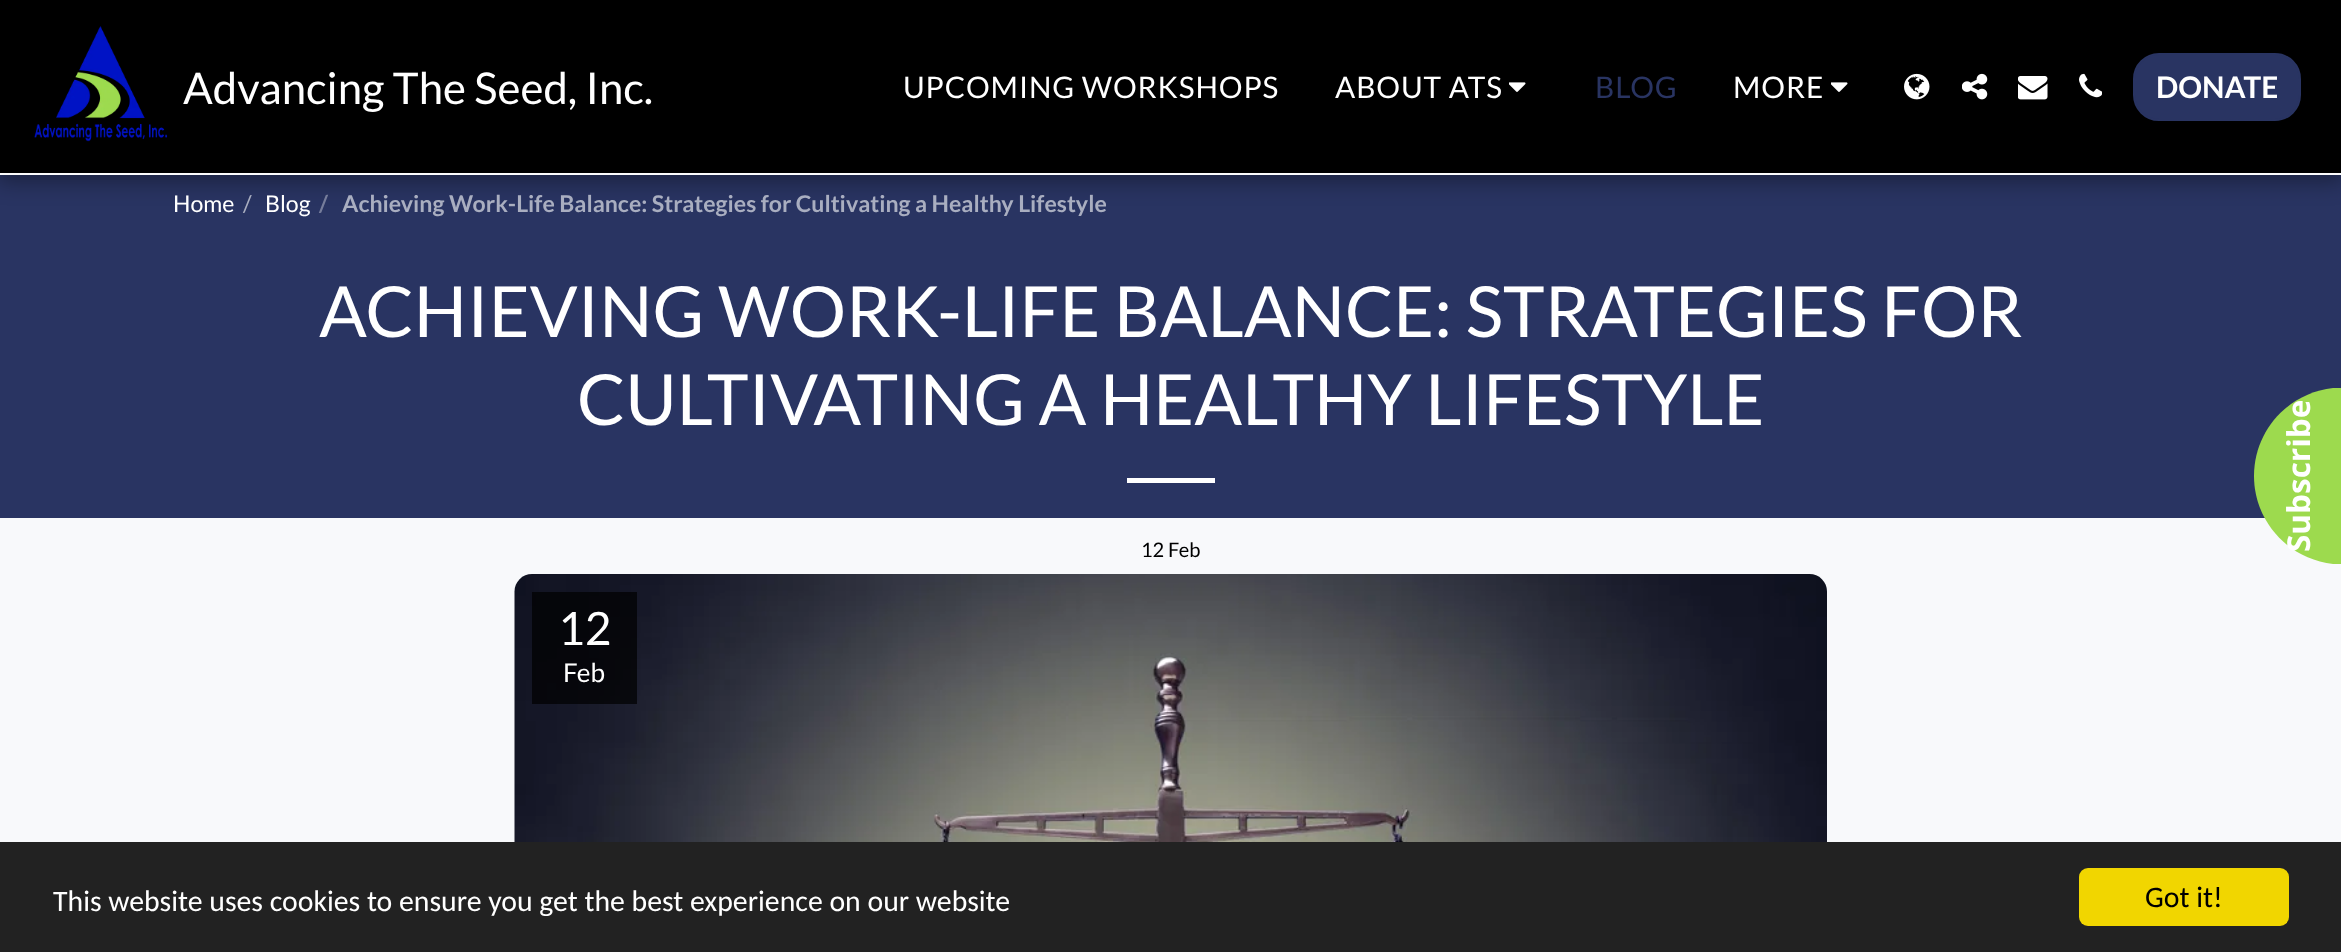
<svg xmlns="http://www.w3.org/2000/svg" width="2341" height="952">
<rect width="100%" height="100%" fill="#f8f9fb"/>
<rect y="175" width="2341" height="343" fill="#293462"/>
<rect x="-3" width="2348" height="182" fill="#00000059" filter="blur(10.5px)"/>
<rect width="2341" height="173" fill="#000"/>
<rect y="173" width="2341" height="2" fill="#fcfcfc"/>
<image x="34" y="26" width="134" height="116" href="media/1.png"/>
<text x="183" y="104" style="font-family:Lato;font-size:43.75px;fill:#fff">Advancing The Seed, Inc.</text>
<text x="903" y="98" style="font-family:Lato;font-size:29.75px;letter-spacing:0.9px;fill:#fff">UPCOMING WORKSHOPS</text>
<text x="1335" y="98" style="font-family:Lato;font-size:29.75px;letter-spacing:0.9px;fill:#fff">ABOUT ATS</text>
<image x="1509" y="82" width="17" height="10" href="media/2.png"/>
<text x="1595" y="98" style="font-family:Lato;font-size:29.75px;letter-spacing:0.9px;fill:#293462">BLOG</text>
<text x="1733" y="98" style="font-family:Lato;font-size:29.75px;letter-spacing:0.9px;fill:#fff">MORE</text>
<image x="1831" y="82" width="17" height="10" href="media/2.png"/>
<image x="1904" y="73" width="26" height="27" href="media/3.png"/>
<image x="1962" y="73" width="26" height="27" href="media/4.png"/>
<image x="2018" y="76" width="30" height="24" href="media/5.png"/>
<image x="2079" y="73" width="23" height="25" href="media/6.png"/>
<rect x="2134" y="54" width="166" height="66" rx="25" fill="#293462" stroke="#293462" stroke-width="2"/>
<text x="2156" y="98" style="font-family:Lato;font-size:29.75px;font-weight:bold;fill:#fff">DONATE</text>
<text x="173" y="212" style="font-family:Lato;font-size:23.1px;fill:#fff">Home</text>
<text x="243" y="212" style="font-family:Lato;font-size:23.1px;fill:#a9aec0">/</text>
<text x="265" y="212" style="font-family:Lato;font-size:23.1px;fill:#fff">Blog</text>
<text x="319" y="212" style="font-family:Lato;font-size:23.1px;font-weight:bold;fill:#767d9b">/</text>
<text x="342" y="212" style="font-family:Lato;font-size:23.1px;font-weight:bold;fill:#a9aec0">Achieving Work-Life Balance: Strategies for Cultivating a Healthy Lifestyle</text>
<text x="319" y="337" style="font-family:Lato;font-size:70.5px;fill:#fff">ACHIEVING WORK-LIFE BALANCE: STRATEGIES FOR</text>
<text x="577" y="425" style="font-family:Lato;font-size:70.5px;fill:#fff">CULTIVATING A HEALTHY LIFESTYLE</text>
<rect x="1127" y="478" width="88" height="5" fill="#fff"/>
<text x="1141" y="557" style="font-family:Lato;font-size:20px;fill:#000">12 Feb</text>
<image x="514" y="574" width="1313" height="268" href="media/7.png"/>
<rect x="532" y="592" width="105" height="112" fill="#000000b3"/>
<text x="558" y="645" style="font-family:Lato;font-size:46px;fill:#fff">12</text>
<text x="563" y="682" style="font-family:Lato;font-size:26px;fill:#fff">Feb</text>
<path d="M2333 564h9v-176h-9c-45 5-79 43-79 88c0 45 34 83 79 88z" fill="#9dda4e"/>
<text x="2310" y="552" transform="rotate(-90 2310 552)" style="font-family:Open Sans;font-size:31.5px;font-weight:bold;fill:#fff">Subscribe</text>
<rect y="842" width="2341" height="110" fill="#222"/>
<text x="53" y="911" style="font-family:Carlito;font-size:29.75px;fill:#fff">This website uses cookies to ensure you get the best experience on our website</text>
<rect x="2079" y="868" width="210" height="58" rx="9" fill="#f1d600"/>
<text x="2145" y="907" style="font-family:Carlito;font-size:29.75px;fill:#000">Got it!</text>
</svg>
